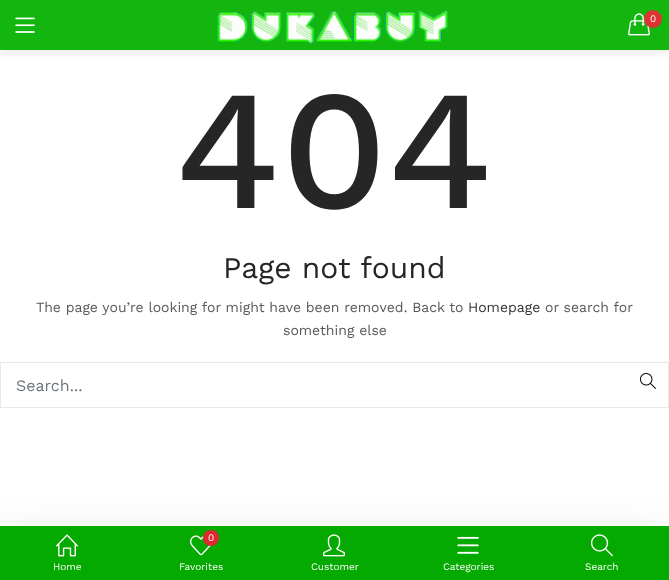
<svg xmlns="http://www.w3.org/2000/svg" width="669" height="580">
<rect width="100%" height="100%" fill="#fff"/>
<rect y="2" width="669" height="50" fill="#0000001a" filter="blur(5px)"/>
<rect width="669" height="50" fill="#12b60f"/>
<image x="15" y="17" width="20" height="16" href="media/1.png"/>
<image x="217" y="10" width="231" height="34" href="media/2.png"/>
<image x="628" y="13" width="22" height="23" href="media/3.png"/>
<circle cx="653" cy="19" r="9" fill="#d33"/>
<text x="650" y="22" style="font-family:Work Sans;font-size:10px;fill:#fff">0</text>
<text x="175" y="208" style="font-family:Work Sans;font-size:170px;font-weight:500;fill:#262626">404</text>
<text x="223" y="278" style="font-family:Work Sans;font-size:30px;fill:#262626">Page not found</text>
<text x="36" y="312" style="font-family:Work Sans;font-size:14px;fill:#595959">The page you’re looking for might have been removed. Back to</text>
<text x="468" y="312" style="font-family:Work Sans;font-size:14px;fill:#333">Homepage</text>
<text x="545" y="312" style="font-family:Work Sans;font-size:14px;fill:#595959">or search for</text>
<text x="283" y="335" style="font-family:Work Sans;font-size:14px;fill:#595959">something else</text>
<rect x="0.5" y="362.5" width="668" height="45" fill="none" stroke="#e8e8e8"/>
<text x="16" y="391" style="font-family:Work Sans;font-size:16px;fill:#6c757d">Search...</text>
<image x="640" y="373" width="16" height="16" href="media/4.png"/>
<rect y="536" width="669" height="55" fill="#0000001a" filter="blur(20px)"/>
<rect y="526" width="669" height="54" fill="#05aa00"/>
<image x="56" y="534" width="22" height="23" href="media/5.png"/>
<text x="53" y="570" style="font-family:Work Sans;font-size:10px;fill:#fff">Home</text>
<image x="190" y="535" width="22" height="21" href="media/6.png"/>
<circle cx="211" cy="538" r="8" fill="#dd2831"/>
<text x="208" y="541" style="font-family:Work Sans;font-size:10px;fill:#fff">0</text>
<text x="179" y="570" style="font-family:Work Sans;font-size:10px;fill:#fff">Favorites</text>
<image x="323" y="534" width="22" height="23" href="media/7.png"/>
<text x="311" y="570" style="font-family:Work Sans;font-size:10px;fill:#fff">Customer</text>
<image x="457" y="536" width="22" height="18" href="media/8.png"/>
<text x="443" y="570" style="font-family:Work Sans;font-size:10px;fill:#fff">Categories</text>
<image x="591" y="534" width="22" height="23" href="media/9.png"/>
<text x="585" y="570" style="font-family:Work Sans;font-size:10px;fill:#fff">Search</text>
</svg>
